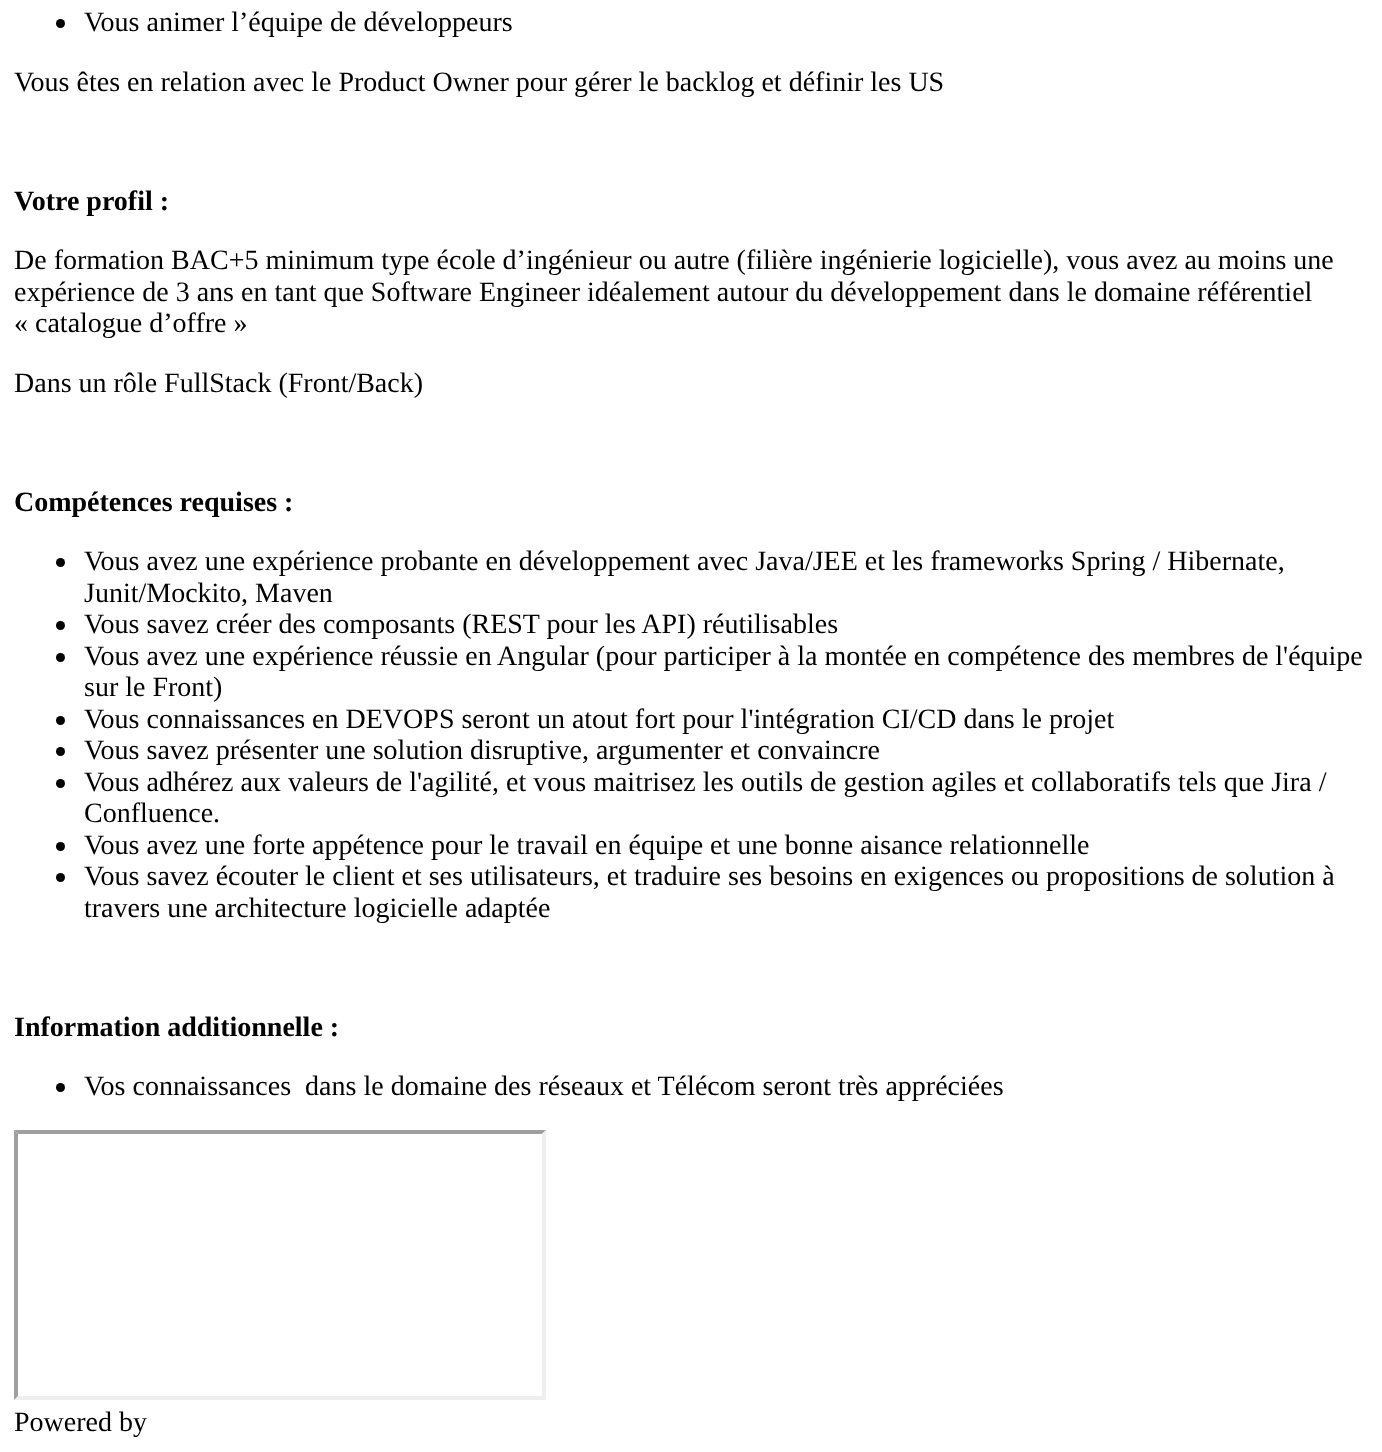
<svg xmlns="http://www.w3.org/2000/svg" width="1382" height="1452">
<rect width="100%" height="100%" fill="#fff"/>
<circle cx="60.5" cy="23.5" r="4.5" fill="#000"/>
<text x="84" y="31" style="font-family:Liberation Serif;font-size:28px;fill:#000">Vous animer l’équipe de développeurs</text>
<text x="14" y="91" style="font-family:Liberation Serif;font-size:28px;fill:#000">Vous êtes en relation avec le Product Owner pour gérer le backlog et définir les US</text>
<text x="14" y="210" style="font-family:Liberation Serif;font-size:28px;font-weight:bold;fill:#000">Votre profil :</text>
<text x="14" y="269" style="font-family:Liberation Serif;font-size:28px;fill:#000">De formation BAC+5 minimum type école d’ingénieur ou autre (filière ingénierie logicielle), vous avez au moins une</text>
<text x="14" y="301" style="font-family:Liberation Serif;font-size:28px;fill:#000">expérience de 3 ans en tant que Software Engineer idéalement autour du développement dans le domaine référentiel</text>
<text x="14" y="332" style="font-family:Liberation Serif;font-size:28px;fill:#000">« catalogue d’offre »</text>
<text x="14" y="392" style="font-family:Liberation Serif;font-size:28px;fill:#000">Dans un rôle FullStack (Front/Back)</text>
<text x="14" y="511" style="font-family:Liberation Serif;font-size:28px;font-weight:bold;fill:#000">Compétences requises :</text>
<circle cx="60.5" cy="562.5" r="4.5" fill="#000"/>
<text x="84" y="570" style="font-family:Liberation Serif;font-size:28px;fill:#000">Vous avez une expérience probante en développement avec Java/JEE et les frameworks Spring / Hibernate,</text>
<text x="84" y="602" style="font-family:Liberation Serif;font-size:28px;fill:#000">Junit/Mockito, Maven</text>
<circle cx="60.5" cy="625.5" r="4.5" fill="#000"/>
<text x="84" y="633" style="font-family:Liberation Serif;font-size:28px;fill:#000">Vous savez créer des composants (REST pour les API) réutilisables</text>
<circle cx="60.5" cy="657.5" r="4.5" fill="#000"/>
<text x="84" y="665" style="font-family:Liberation Serif;font-size:28px;fill:#000">Vous avez une expérience réussie en Angular (pour participer à la montée en compétence des membres de l'équipe</text>
<text x="84" y="696" style="font-family:Liberation Serif;font-size:28px;fill:#000">sur le Front)</text>
<circle cx="60.5" cy="720.5" r="4.5" fill="#000"/>
<text x="84" y="728" style="font-family:Liberation Serif;font-size:28px;fill:#000">Vous connaissances en DEVOPS seront un atout fort pour l'intégration CI/CD dans le projet</text>
<circle cx="60.5" cy="751.5" r="4.5" fill="#000"/>
<text x="84" y="759" style="font-family:Liberation Serif;font-size:28px;fill:#000">Vous savez présenter une solution disruptive, argumenter et convaincre</text>
<circle cx="60.5" cy="783.5" r="4.5" fill="#000"/>
<text x="84" y="791" style="font-family:Liberation Serif;font-size:28px;fill:#000">Vous adhérez aux valeurs de l'agilité, et vous maitrisez les outils de gestion agiles et collaboratifs tels que Jira /</text>
<text x="84" y="822" style="font-family:Liberation Serif;font-size:28px;fill:#000">Confluence.</text>
<circle cx="60.5" cy="846.5" r="4.5" fill="#000"/>
<text x="84" y="854" style="font-family:Liberation Serif;font-size:28px;fill:#000">Vous avez une forte appétence pour le travail en équipe et une bonne aisance relationnelle</text>
<circle cx="60.5" cy="877.5" r="4.5" fill="#000"/>
<text x="84" y="885" style="font-family:Liberation Serif;font-size:28px;fill:#000">Vous savez écouter le client et ses utilisateurs, et traduire ses besoins en exigences ou propositions de solution à</text>
<text x="84" y="917" style="font-family:Liberation Serif;font-size:28px;fill:#000">travers une architecture logicielle adaptée</text>
<text x="14" y="1036" style="font-family:Liberation Serif;font-size:28px;font-weight:bold;fill:#000">Information additionnelle :</text>
<circle cx="60.5" cy="1087.5" r="4.5" fill="#000"/>
<text x="84" y="1095" style="font-family:Liberation Serif;font-size:28px;fill:#000" xml:space="preserve">Vos connaissances  dans le domaine des réseaux et Télécom seront très appréciées</text>
<path d="M14 1130h532l-4 4h-524z" fill="#9f9f9f"/>
<path d="M546 1130v270l-4-4v-262z" fill="#eee"/>
<path d="M546 1400h-532l4-4h524z" fill="#eee"/>
<path d="M14 1400v-270l4 4v262z" fill="#9f9f9f"/>
<text x="14" y="1431" style="font-family:Liberation Serif;font-size:28px;fill:#000">Powered by</text>
</svg>
